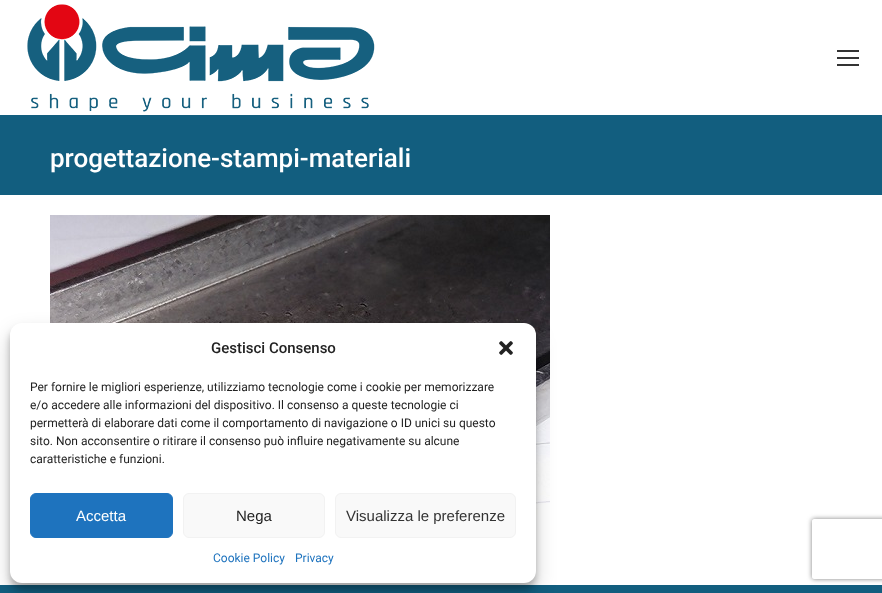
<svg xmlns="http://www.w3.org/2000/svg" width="882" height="593">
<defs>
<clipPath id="clip1"><path d="M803 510h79v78h-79zm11 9h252c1 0 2 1 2 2v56c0 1-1 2-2 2h-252c-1 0-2-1-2-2v-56c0-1 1-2 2-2z" clip-rule="evenodd"/></clipPath>
</defs>
<rect width="100%" height="100%" fill="#fff"/>
<image x="27" y="4" width="348" height="108" href="media/1.png"/>
<rect x="837" y="50" width="22" height="2" fill="#333"/>
<rect x="837" y="57" width="22" height="2" fill="#333"/>
<rect x="837" y="64" width="22" height="2" fill="#333"/>
<rect y="115" width="882" height="80" fill="#125e7f"/>
<text x="50" y="167" style="font-family:Roboto;font-size:26px;font-weight:500;fill:#fff">progettazione-stampi-materiali</text>
<image x="50" y="215" width="500" height="325" href="media/2.png"/>
<g clip-path="url(#clip1)">
<rect x="812" y="519" width="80" height="60" rx="2" fill="#808080" filter="blur(2.5px)"/>
</g>
<rect y="585" width="882" height="8" fill="#125e7f"/>
<rect x="10" y="329" width="526" height="260" rx="12" fill="#0000003b" filter="blur(3px)"/>
<rect x="10" y="333" width="526" height="260" rx="12" fill="#00000030" filter="blur(10px)"/>
<rect x="10" y="323" width="526" height="260" rx="12" fill="#fff"/>
<text x="211" y="353" style="font-family:Roboto;font-size:15px;font-weight:500;fill:#222">Gestisci Consenso</text>
<image x="499" y="341" width="14" height="14" href="media/3.png"/>
<text x="30" y="391" style="font-family:Roboto;font-size:12px;fill:#222">Per fornire le migliori esperienze, utilizziamo tecnologie come i cookie per memorizzare</text>
<text x="30" y="409" style="font-family:Roboto;font-size:12px;fill:#222">e/o accedere alle informazioni del dispositivo. Il consenso a queste tecnologie ci</text>
<text x="30" y="427" style="font-family:Roboto;font-size:12px;fill:#222">permetterà di elaborare dati come il comportamento di navigazione o ID unici su questo</text>
<text x="30" y="445" style="font-family:Roboto;font-size:12px;fill:#222">sito. Non acconsentire o ritirare il consenso può influire negativamente su alcune</text>
<text x="30" y="463" style="font-family:Roboto;font-size:12px;fill:#222">caratteristiche e funzioni.</text>
<rect x="30.5" y="493.5" width="142" height="44" rx="5.5" fill="#1e73be" stroke="#1e73be"/>
<text x="76" y="521" style="font-family:Liberation Sans;font-size:15px;fill:#fff">Accetta</text>
<rect x="183.5" y="493.5" width="141" height="44" rx="5.5" fill="#f9f9f9" stroke="#f2f2f2"/>
<text x="236" y="521" style="font-family:Liberation Sans;font-size:15px;fill:#222">Nega</text>
<rect x="335.5" y="493.5" width="180" height="44" rx="5.5" fill="#f9f9f9" stroke="#f2f2f2"/>
<text x="346" y="521" style="font-family:Liberation Sans;font-size:15px;fill:#333">Visualizza le preferenze</text>
<text x="213" y="562" style="font-family:Roboto;font-size:12px;fill:#1e73be">Cookie Policy</text>
<text x="295" y="562" style="font-family:Roboto;font-size:12px;fill:#1e73be">Privacy</text>
</svg>
